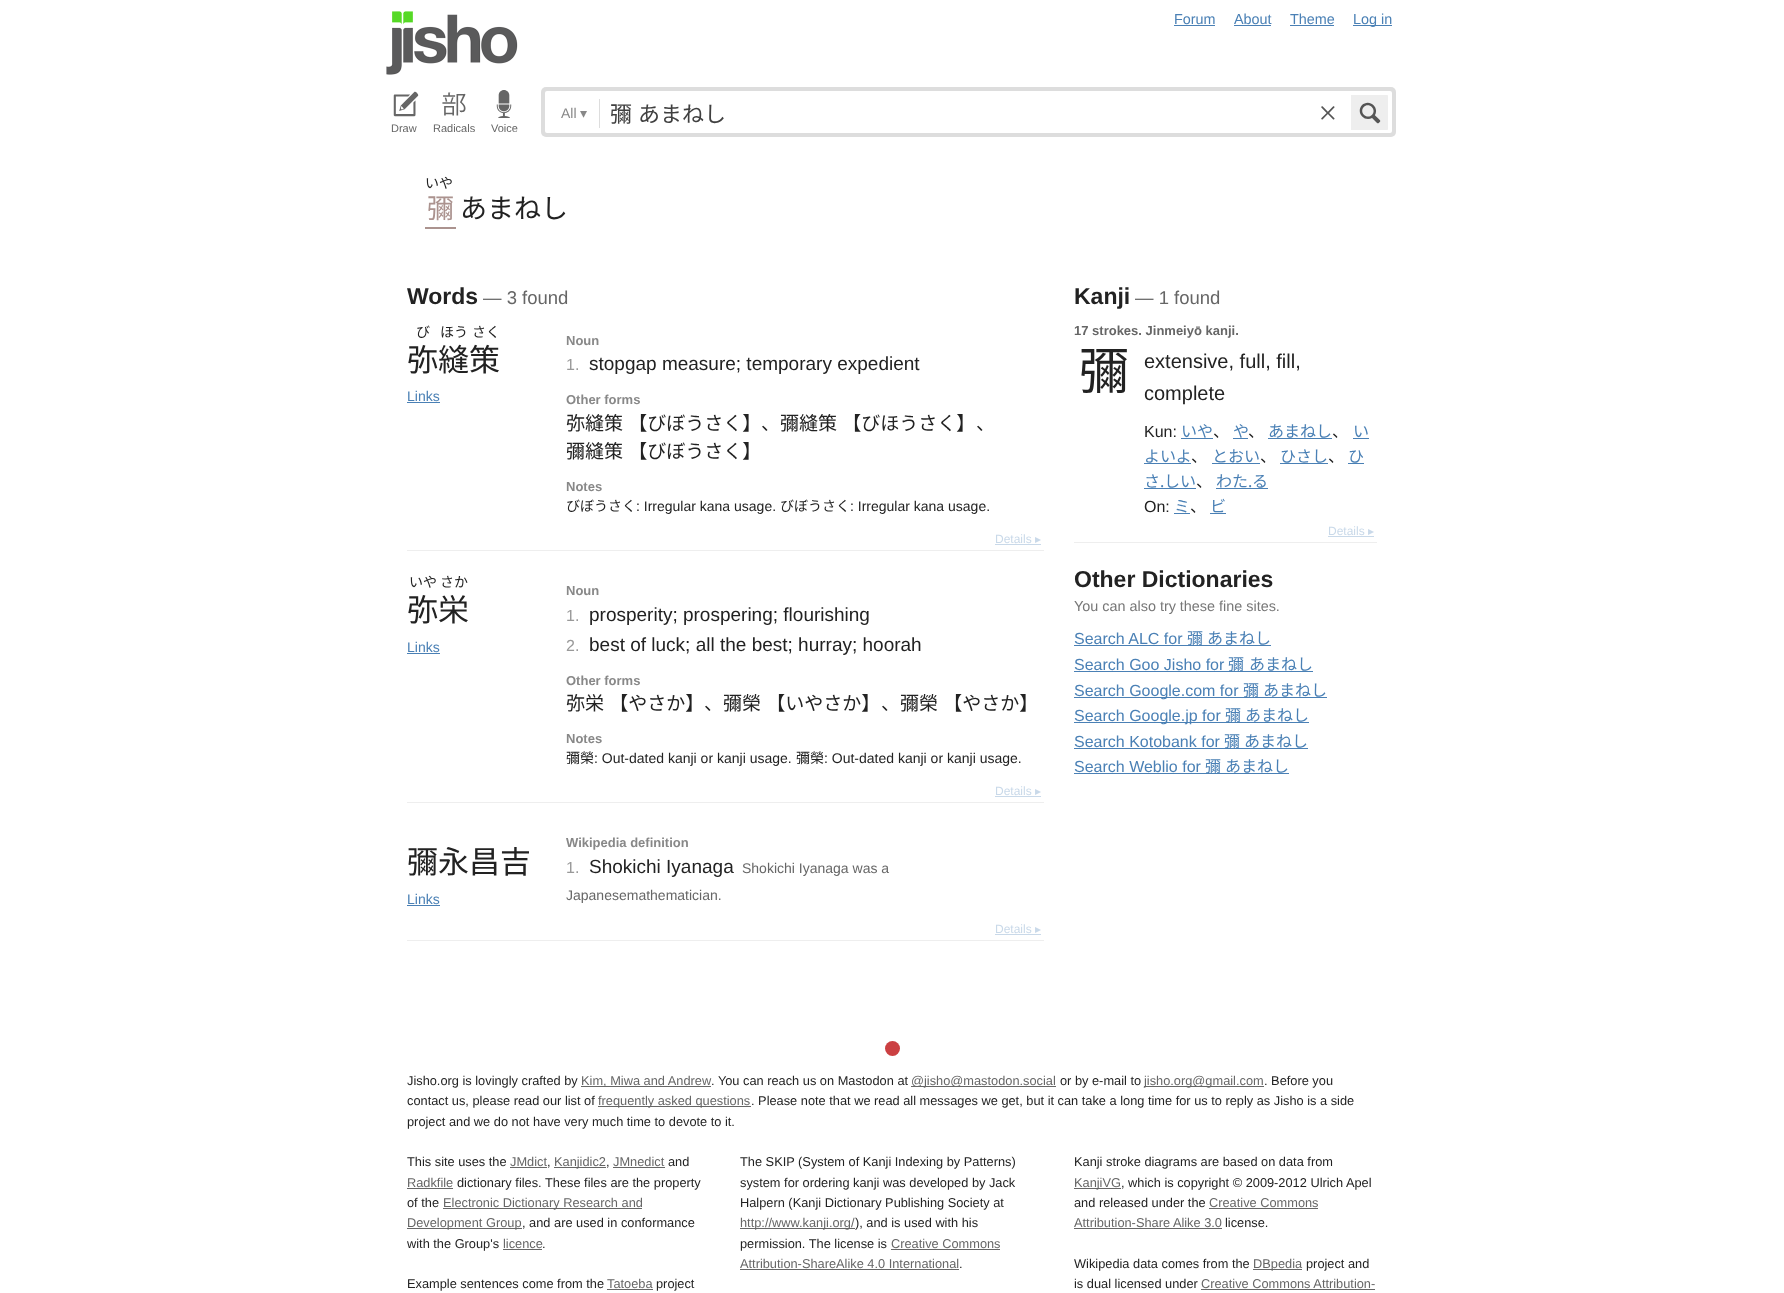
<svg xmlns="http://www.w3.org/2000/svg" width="1784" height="1293">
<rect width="100%" height="100%" fill="#fff"/>
<image x="386" y="11" width="132" height="64" href="media/1.png"/>
<text x="1174" y="24" style="font-family:Liberation Sans;font-size:14.4px;fill:#4a80b5">Forum</text>
<rect x="1174" y="25" width="41" height="1" fill="#4a80b5"/>
<text x="1234" y="24" style="font-family:Liberation Sans;font-size:14.4px;fill:#4a80b5">About</text>
<rect x="1234" y="25" width="37" height="1" fill="#4a80b5"/>
<text x="1290" y="24" style="font-family:Liberation Sans;font-size:14.4px;fill:#4a80b5">Theme</text>
<rect x="1290" y="25" width="44" height="1" fill="#4a80b5"/>
<rect x="1353" y="25" width="39" height="1" fill="#4a80b5"/>
<text x="1353" y="24" style="font-family:Liberation Sans;font-size:14.4px;fill:#4a80b5">Log in</text>
<rect x="541" y="87" width="855" height="50" rx="5" fill="#ddd"/>
<rect x="545" y="91" width="847" height="42" rx="2" fill="#fff"/>
<rect x="599" y="99" width="1" height="29" fill="#ddd"/>
<text x="561" y="118" style="font-family:Liberation Sans;font-size:14px;fill:#888">All</text>
<text x="580" y="118" style="font-family:DejaVu Sans;font-size:14px;fill:#888">▾</text>
<text x="610" y="122" word-spacing="1" style="font-family:Noto Sans CJK JP;font-size:22px;fill:#404040">彌 あまねし</text>
<image x="1321" y="106" width="14" height="14" href="media/2.png"/>
<path d="M1351 95h36c.5 0 1 .5 1 1v33c0 .5-.5 1-1 1h-36z" fill="#eee"/>
<image x="1359" y="102" width="22" height="22" href="media/3.png"/>
<image x="393" y="91" width="26" height="26" href="media/4.png"/>
<text x="391" y="132" style="font-family:Liberation Sans;font-size:11px;fill:#666">Draw</text>
<image x="442" y="92" width="24" height="24" href="media/5.png"/>
<text x="433" y="132" style="font-family:Liberation Sans;font-size:11px;fill:#666">Radicals</text>
<image x="496" y="90" width="16" height="28" href="media/6.png"/>
<text x="491" y="132" style="font-family:Liberation Sans;font-size:11px;fill:#666">Voice</text>
<text x="425" y="188" style="font-family:Noto Sans CJK JP;font-size:14px;fill:#222">いや</text>
<text x="427" y="218" style="font-family:Noto Sans CJK JP;font-size:27px;fill:#ab938f">彌</text>
<rect x="425" y="227" width="31" height="2" fill="#ab938f"/>
<text x="460" y="218" style="font-family:Noto Sans CJK JP;font-size:27px;fill:#222">あまねし</text>
<text x="407" y="304" style="font-family:Liberation Sans;font-size:23px;font-weight:bold;fill:#222">Words</text>
<text x="483" y="304" style="font-family:Liberation Sans;font-size:18.5px;fill:#666">— 3 found</text>
<rect x="407" y="550" width="637" height="1" fill="#eee"/>
<text x="416" y="337" style="font-family:Noto Sans CJK JP;font-size:14px;fill:#222">び</text>
<text x="440" y="337" style="font-family:Noto Sans CJK JP;font-size:14px;fill:#222">ほう</text>
<text x="472" y="337" style="font-family:Noto Sans CJK JP;font-size:14px;fill:#222">さく</text>
<text x="407" y="371" style="font-family:Noto Sans CJK JP;font-size:31px;fill:#222">弥縫策</text>
<text x="407" y="401" style="font-family:Liberation Sans;font-size:14px;fill:#4a80b5">Links</text>
<rect x="407" y="402" width="33" height="1" fill="#4a80b5"/>
<text x="566" y="345" style="font-family:Liberation Sans;font-size:13px;font-weight:bold;fill:#888">Noun</text>
<text x="566" y="370" style="font-family:Liberation Sans;font-size:16px;fill:#999">1.</text>
<text x="589" y="370" style="font-family:Liberation Sans;font-size:19px;fill:#222">stopgap measure; temporary expedient</text>
<text x="566" y="404" style="font-family:Liberation Sans;font-size:13px;font-weight:bold;fill:#888">Other forms</text>
<text x="566" y="430" word-spacing="1" style="font-family:Noto Sans CJK JP;font-size:19px;fill:#222">弥縫策 【びぼうさく】</text>
<text x="761" y="430" style="font-family:Noto Sans CJK JP;font-size:19px;fill:#222">、</text>
<text x="780" y="430" word-spacing="1" style="font-family:Noto Sans CJK JP;font-size:19px;fill:#222">彌縫策 【びほうさく】</text>
<text x="976" y="430" style="font-family:Noto Sans CJK JP;font-size:19px;fill:#222">、</text>
<text x="566" y="458" word-spacing="1" style="font-family:Noto Sans CJK JP;font-size:19px;fill:#222">彌縫策 【びぼうさく】</text>
<text x="566" y="491" style="font-family:Liberation Sans;font-size:13px;font-weight:bold;fill:#888">Notes</text>
<text x="566" y="511" style="font-family:Noto Sans CJK JP;font-size:14px;fill:#222">びぼうさく</text>
<text x="636" y="511" style="font-family:Liberation Sans;font-size:14px;fill:#222">: Irregular kana usage.</text>
<text x="780" y="511" style="font-family:Noto Sans CJK JP;font-size:14px;fill:#222">びぼうさく</text>
<text x="850" y="511" style="font-family:Liberation Sans;font-size:14px;fill:#222">: Irregular kana usage.</text>
<text x="995" y="543" style="font-family:Liberation Sans;font-size:12px;fill:#c9d9e9">Details</text>
<text x="1035" y="543" style="font-family:DejaVu Sans;font-size:12px;fill:#c9d9e9">▸</text>
<rect x="995" y="544" width="46" height="1" fill="#c9d9e9"/>
<rect x="407" y="802" width="637" height="1" fill="#eee"/>
<text x="409" y="587" style="font-family:Noto Sans CJK JP;font-size:14px;fill:#222">いや</text>
<text x="440" y="587" style="font-family:Noto Sans CJK JP;font-size:14px;fill:#222">さか</text>
<text x="407" y="621" style="font-family:Noto Sans CJK JP;font-size:31px;fill:#222">弥栄</text>
<text x="407" y="652" style="font-family:Liberation Sans;font-size:14px;fill:#4a80b5">Links</text>
<rect x="407" y="653" width="33" height="1" fill="#4a80b5"/>
<text x="566" y="595" style="font-family:Liberation Sans;font-size:13px;font-weight:bold;fill:#888">Noun</text>
<text x="566" y="621" style="font-family:Liberation Sans;font-size:16px;fill:#999">1.</text>
<text x="589" y="621" style="font-family:Liberation Sans;font-size:19px;fill:#222">prosperity; prospering; flourishing</text>
<text x="566" y="651" style="font-family:Liberation Sans;font-size:16px;fill:#999">2.</text>
<text x="589" y="651" style="font-family:Liberation Sans;font-size:19px;fill:#222">best of luck; all the best; hurray; hoorah</text>
<text x="566" y="685" style="font-family:Liberation Sans;font-size:13px;font-weight:bold;fill:#888">Other forms</text>
<text x="566" y="710" word-spacing="1" style="font-family:Noto Sans CJK JP;font-size:19px;fill:#222">弥栄 【やさか】</text>
<text x="704" y="710" style="font-family:Noto Sans CJK JP;font-size:19px;fill:#222">、</text>
<text x="723" y="710" word-spacing="1" style="font-family:Noto Sans CJK JP;font-size:19px;fill:#222">彌榮 【いやさか】</text>
<text x="881" y="710" style="font-family:Noto Sans CJK JP;font-size:19px;fill:#222">、</text>
<text x="900" y="710" word-spacing="1" style="font-family:Noto Sans CJK JP;font-size:19px;fill:#222">彌榮 【やさか】</text>
<text x="566" y="743" style="font-family:Liberation Sans;font-size:13px;font-weight:bold;fill:#888">Notes</text>
<text x="566" y="763" style="font-family:Noto Sans CJK JP;font-size:14px;fill:#222">彌榮</text>
<text x="594" y="763" style="font-family:Liberation Sans;font-size:14px;fill:#222">: Out-dated kanji or kanji usage.</text>
<text x="796" y="763" style="font-family:Noto Sans CJK JP;font-size:14px;fill:#222">彌榮</text>
<text x="824" y="763" style="font-family:Liberation Sans;font-size:14px;fill:#222">: Out-dated kanji or kanji usage.</text>
<text x="995" y="795" style="font-family:Liberation Sans;font-size:12px;fill:#c9d9e9">Details</text>
<text x="1035" y="795" style="font-family:DejaVu Sans;font-size:12px;fill:#c9d9e9">▸</text>
<rect x="995" y="796" width="46" height="1" fill="#c9d9e9"/>
<rect x="407" y="940" width="637" height="1" fill="#eee"/>
<text x="407" y="873" style="font-family:Noto Sans CJK JP;font-size:31px;fill:#222">彌永昌吉</text>
<text x="407" y="904" style="font-family:Liberation Sans;font-size:14px;fill:#4a80b5">Links</text>
<rect x="407" y="905" width="33" height="1" fill="#4a80b5"/>
<text x="566" y="847" style="font-family:Liberation Sans;font-size:13px;font-weight:bold;fill:#888">Wikipedia definition</text>
<text x="566" y="873" style="font-family:Liberation Sans;font-size:16px;fill:#999">1.</text>
<text x="589" y="873" style="font-family:Liberation Sans;font-size:19px;fill:#222">Shokichi Iyanaga</text>
<text x="742" y="873" style="font-family:Liberation Sans;font-size:14px;fill:#666">Shokichi Iyanaga was a</text>
<text x="566" y="900" style="font-family:Liberation Sans;font-size:14px;fill:#666">Japanesemathematician.</text>
<text x="995" y="933" style="font-family:Liberation Sans;font-size:12px;fill:#c9d9e9">Details</text>
<text x="1035" y="933" style="font-family:DejaVu Sans;font-size:12px;fill:#c9d9e9">▸</text>
<rect x="995" y="934" width="46" height="1" fill="#c9d9e9"/>
<text x="1074" y="304" style="font-family:Liberation Sans;font-size:23px;font-weight:bold;fill:#222">Kanji</text>
<text x="1135" y="304" style="font-family:Liberation Sans;font-size:18.5px;fill:#666">— 1 found</text>
<rect x="1074" y="542" width="303" height="1" fill="#eee"/>
<text x="1074" y="335" style="font-family:Liberation Sans;font-size:13px;font-weight:bold;fill:#666">17 strokes. Jinmeiyō kanji.</text>
<text x="1079" y="389" style="font-family:Noto Sans CJK JP;font-size:50px;fill:#222">彌</text>
<text x="1144" y="368" style="font-family:Liberation Sans;font-size:20px;fill:#222">extensive, full, fill,</text>
<text x="1144" y="400" style="font-family:Liberation Sans;font-size:20px;fill:#222">complete</text>
<text x="1144" y="437" style="font-family:Liberation Sans;font-size:16px;fill:#222">Kun:</text>
<text x="1181" y="437" style="font-family:Noto Sans CJK JP;font-size:16px;fill:#4a80b5">いや</text>
<text x="1213" y="437" style="font-family:Noto Sans CJK JP;font-size:16px;fill:#222">、</text>
<rect x="1181" y="438" width="32" height="1" fill="#4a80b5"/>
<text x="1233" y="437" style="font-family:Noto Sans CJK JP;font-size:16px;fill:#4a80b5">や</text>
<text x="1248" y="437" style="font-family:Noto Sans CJK JP;font-size:16px;fill:#222">、</text>
<rect x="1233" y="438" width="15" height="1" fill="#4a80b5"/>
<text x="1268" y="437" style="font-family:Noto Sans CJK JP;font-size:16px;fill:#4a80b5">あまねし</text>
<text x="1332" y="437" style="font-family:Noto Sans CJK JP;font-size:16px;fill:#222">、</text>
<rect x="1268" y="438" width="64" height="1" fill="#4a80b5"/>
<text x="1353" y="437" style="font-family:Noto Sans CJK JP;font-size:16px;fill:#4a80b5">い</text>
<rect x="1353" y="438" width="16" height="1" fill="#4a80b5"/>
<text x="1144" y="462" style="font-family:Noto Sans CJK JP;font-size:16px;fill:#4a80b5">よいよ</text>
<text x="1191" y="462" style="font-family:Noto Sans CJK JP;font-size:16px;fill:#222">、</text>
<rect x="1144" y="463" width="47" height="1" fill="#4a80b5"/>
<text x="1212" y="462" style="font-family:Noto Sans CJK JP;font-size:16px;fill:#4a80b5">とおい</text>
<text x="1260" y="462" style="font-family:Noto Sans CJK JP;font-size:16px;fill:#222">、</text>
<rect x="1212" y="463" width="48" height="1" fill="#4a80b5"/>
<text x="1280" y="462" style="font-family:Noto Sans CJK JP;font-size:16px;fill:#4a80b5">ひさし</text>
<text x="1328" y="462" style="font-family:Noto Sans CJK JP;font-size:16px;fill:#222">、</text>
<rect x="1280" y="463" width="48" height="1" fill="#4a80b5"/>
<text x="1348" y="462" style="font-family:Noto Sans CJK JP;font-size:16px;fill:#4a80b5">ひ</text>
<rect x="1348" y="463" width="16" height="1" fill="#4a80b5"/>
<text x="1144" y="487" style="font-family:Noto Sans CJK JP;font-size:16px;fill:#4a80b5">さ</text>
<text x="1160" y="487" style="font-family:Noto Sans;font-size:16px;fill:#4a80b5">.</text>
<rect x="1144" y="488" width="52" height="1" fill="#4a80b5"/>
<text x="1164" y="487" style="font-family:Noto Sans CJK JP;font-size:16px;fill:#4a80b5">しい</text>
<text x="1196" y="487" style="font-family:Noto Sans CJK JP;font-size:16px;fill:#222">、</text>
<text x="1216" y="487" style="font-family:Noto Sans CJK JP;font-size:16px;fill:#4a80b5">わた</text>
<text x="1248" y="487" style="font-family:Noto Sans;font-size:16px;fill:#4a80b5">.</text>
<rect x="1216" y="488" width="52" height="1" fill="#4a80b5"/>
<text x="1252" y="487" style="font-family:Noto Sans CJK JP;font-size:16px;fill:#4a80b5">る</text>
<text x="1144" y="512" style="font-family:Liberation Sans;font-size:16px;fill:#222">On:</text>
<text x="1174" y="512" style="font-family:Noto Sans CJK JP;font-size:16px;fill:#4a80b5">ミ</text>
<text x="1190" y="512" style="font-family:Noto Sans CJK JP;font-size:16px;fill:#222">、</text>
<rect x="1174" y="513" width="16" height="1" fill="#4a80b5"/>
<text x="1210" y="512" style="font-family:Noto Sans CJK JP;font-size:16px;fill:#4a80b5">ビ</text>
<rect x="1210" y="513" width="16" height="1" fill="#4a80b5"/>
<text x="1328" y="535" style="font-family:Liberation Sans;font-size:12px;fill:#c9d9e9">Details</text>
<text x="1368" y="535" style="font-family:DejaVu Sans;font-size:12px;fill:#c9d9e9">▸</text>
<rect x="1328" y="536" width="46" height="1" fill="#c9d9e9"/>
<text x="1074" y="587" style="font-family:Liberation Sans;font-size:23px;font-weight:bold;fill:#222">Other Dictionaries</text>
<text x="1074" y="611" style="font-family:Liberation Sans;font-size:14.4px;fill:#777">You can also try these fine sites.</text>
<text x="1074" y="644" style="font-family:Liberation Sans;font-size:16px;fill:#4a80b5">Search ALC for</text>
<rect x="1074" y="645" width="197" height="1" fill="#4a80b5"/>
<text x="1187" y="644" style="font-family:Noto Sans CJK JP;font-size:16px;fill:#4a80b5">彌</text>
<text x="1207" y="644" style="font-family:Noto Sans CJK JP;font-size:16px;fill:#4a80b5">あまねし</text>
<text x="1074" y="670" style="font-family:Liberation Sans;font-size:16px;fill:#4a80b5">Search Goo Jisho for</text>
<rect x="1074" y="671" width="239" height="1" fill="#4a80b5"/>
<text x="1228" y="670" style="font-family:Noto Sans CJK JP;font-size:16px;fill:#4a80b5">彌</text>
<text x="1249" y="670" style="font-family:Noto Sans CJK JP;font-size:16px;fill:#4a80b5">あまねし</text>
<rect x="1074" y="697" width="253" height="1" fill="#4a80b5"/>
<text x="1074" y="696" style="font-family:Liberation Sans;font-size:16px;fill:#4a80b5">Search Google.com for</text>
<text x="1243" y="696" style="font-family:Noto Sans CJK JP;font-size:16px;fill:#4a80b5">彌</text>
<text x="1263" y="696" style="font-family:Noto Sans CJK JP;font-size:16px;fill:#4a80b5">あまねし</text>
<rect x="1074" y="722" width="235" height="1" fill="#4a80b5"/>
<text x="1074" y="721" style="font-family:Liberation Sans;font-size:16px;fill:#4a80b5">Search Google.jp for</text>
<text x="1225" y="721" style="font-family:Noto Sans CJK JP;font-size:16px;fill:#4a80b5">彌</text>
<text x="1245" y="721" style="font-family:Noto Sans CJK JP;font-size:16px;fill:#4a80b5">あまねし</text>
<text x="1074" y="747" style="font-family:Liberation Sans;font-size:16px;fill:#4a80b5">Search Kotobank for</text>
<rect x="1074" y="748" width="234" height="1" fill="#4a80b5"/>
<text x="1224" y="747" style="font-family:Noto Sans CJK JP;font-size:16px;fill:#4a80b5">彌</text>
<text x="1244" y="747" style="font-family:Noto Sans CJK JP;font-size:16px;fill:#4a80b5">あまねし</text>
<text x="1074" y="772" style="font-family:Liberation Sans;font-size:16px;fill:#4a80b5">Search Weblio for</text>
<rect x="1074" y="773" width="215" height="1" fill="#4a80b5"/>
<text x="1205" y="772" style="font-family:Noto Sans CJK JP;font-size:16px;fill:#4a80b5">彌</text>
<text x="1225" y="772" style="font-family:Noto Sans CJK JP;font-size:16px;fill:#4a80b5">あまねし</text>
<circle cx="892.5" cy="1048.5" r="7.5" fill="#cb4042"/>
<text x="407" y="1085" style="font-family:Liberation Sans;font-size:12.8px;fill:#222">Jisho.org is lovingly crafted by</text>
<rect x="581" y="1086" width="130" height="1" fill="#666"/>
<text x="581" y="1085" style="font-family:Liberation Sans;font-size:12.8px;fill:#666">Kim, Miwa and Andrew</text>
<text x="711" y="1085" style="font-family:Liberation Sans;font-size:12.8px;fill:#222">. You can reach us on Mastodon at</text>
<rect x="911" y="1086" width="145" height="1" fill="#666"/>
<text x="911" y="1085" style="font-family:Liberation Sans;font-size:12.8px;fill:#666">@jisho@mastodon.social</text>
<text x="1060" y="1085" style="font-family:Liberation Sans;font-size:12.8px;fill:#222">or by e-mail to</text>
<rect x="1144" y="1086" width="120" height="1" fill="#666"/>
<text x="1144" y="1085" style="font-family:Liberation Sans;font-size:12.8px;fill:#666">jisho.org@gmail.com</text>
<text x="1264" y="1085" style="font-family:Liberation Sans;font-size:12.8px;fill:#222">. Before you</text>
<text x="407" y="1105" style="font-family:Liberation Sans;font-size:12.8px;fill:#222">contact us, please read our list of</text>
<rect x="598" y="1106" width="153" height="1" fill="#666"/>
<text x="598" y="1105" style="font-family:Liberation Sans;font-size:12.8px;fill:#666">frequently asked questions</text>
<text x="751" y="1105" style="font-family:Liberation Sans;font-size:12.8px;fill:#222">. Please note that we read all messages we get, but it can take a long time for us to reply as Jisho is a side</text>
<text x="407" y="1126" style="font-family:Liberation Sans;font-size:12.8px;fill:#222">project and we do not have very much time to devote to it.</text>
<text x="407" y="1166" style="font-family:Liberation Sans;font-size:12.8px;fill:#222">This site uses the</text>
<text x="510" y="1166" style="font-family:Liberation Sans;font-size:12.8px;fill:#666">JMdict</text>
<rect x="510" y="1167" width="37" height="1" fill="#666"/>
<text x="547" y="1166" style="font-family:Liberation Sans;font-size:12.8px;fill:#222">,</text>
<rect x="554" y="1167" width="52" height="1" fill="#666"/>
<text x="554" y="1166" style="font-family:Liberation Sans;font-size:12.8px;fill:#666">Kanjidic2</text>
<text x="606" y="1166" style="font-family:Liberation Sans;font-size:12.8px;fill:#222">,</text>
<text x="613" y="1166" style="font-family:Liberation Sans;font-size:12.8px;fill:#666">JMnedict</text>
<rect x="613" y="1167" width="52" height="1" fill="#666"/>
<text x="668" y="1166" style="font-family:Liberation Sans;font-size:12.8px;fill:#222">and</text>
<text x="407" y="1187" style="font-family:Liberation Sans;font-size:12.8px;fill:#666">Radkfile</text>
<rect x="407" y="1188" width="46" height="1" fill="#666"/>
<text x="457" y="1187" style="font-family:Liberation Sans;font-size:12.8px;fill:#222">dictionary files. These files are the property</text>
<text x="407" y="1207" style="font-family:Liberation Sans;font-size:12.8px;fill:#222">of the</text>
<rect x="443" y="1208" width="199" height="1" fill="#666"/>
<text x="443" y="1207" style="font-family:Liberation Sans;font-size:12.8px;fill:#666">Electronic Dictionary Research and</text>
<rect x="407" y="1228" width="115" height="1" fill="#666"/>
<text x="407" y="1227" style="font-family:Liberation Sans;font-size:12.8px;fill:#666">Development Group</text>
<text x="522" y="1227" style="font-family:Liberation Sans;font-size:12.8px;fill:#222">, and are used in conformance</text>
<text x="407" y="1248" style="font-family:Liberation Sans;font-size:12.8px;fill:#222">with the Group's</text>
<text x="503" y="1248" style="font-family:Liberation Sans;font-size:12.8px;fill:#666">licence</text>
<rect x="503" y="1249" width="39" height="1" fill="#666"/>
<text x="542" y="1248" style="font-family:Liberation Sans;font-size:12.8px;fill:#222">.</text>
<text x="407" y="1288" style="font-family:Liberation Sans;font-size:12.8px;fill:#222">Example sentences come from the</text>
<text x="607" y="1288" style="font-family:Liberation Sans;font-size:12.8px;fill:#666">Tatoeba</text>
<rect x="607" y="1289" width="46" height="1" fill="#666"/>
<text x="656" y="1288" style="font-family:Liberation Sans;font-size:12.8px;fill:#222">project</text>
<text x="740" y="1166" style="font-family:Liberation Sans;font-size:12.8px;fill:#222">The SKIP (System of Kanji Indexing by Patterns)</text>
<text x="740" y="1187" style="font-family:Liberation Sans;font-size:12.8px;fill:#222">system for ordering kanji was developed by Jack</text>
<text x="740" y="1207" style="font-family:Liberation Sans;font-size:12.8px;fill:#222">Halpern (Kanji Dictionary Publishing Society at</text>
<rect x="740" y="1228" width="115" height="1" fill="#666"/>
<text x="740" y="1227" style="font-family:Liberation Sans;font-size:12.8px;fill:#666">http://www.kanji.org/</text>
<text x="855" y="1227" style="font-family:Liberation Sans;font-size:12.8px;fill:#222">), and is used with his</text>
<text x="740" y="1248" style="font-family:Liberation Sans;font-size:12.8px;fill:#222">permission. The license is</text>
<text x="891" y="1248" style="font-family:Liberation Sans;font-size:12.8px;fill:#666">Creative Commons</text>
<rect x="891" y="1249" width="109" height="1" fill="#666"/>
<text x="740" y="1268" style="font-family:Liberation Sans;font-size:12.8px;fill:#666">Attribution-ShareAlike 4.0 International</text>
<rect x="740" y="1269" width="219" height="1" fill="#666"/>
<text x="959" y="1268" style="font-family:Liberation Sans;font-size:12.8px;fill:#222">.</text>
<text x="1074" y="1166" style="font-family:Liberation Sans;font-size:12.8px;fill:#222">Kanji stroke diagrams are based on data from</text>
<rect x="1074" y="1188" width="47" height="1" fill="#666"/>
<text x="1074" y="1187" style="font-family:Liberation Sans;font-size:12.8px;fill:#666">KanjiVG</text>
<text x="1121" y="1187" style="font-family:Liberation Sans;font-size:12.8px;fill:#222">, which is copyright © 2009-2012 Ulrich Apel</text>
<text x="1074" y="1207" style="font-family:Liberation Sans;font-size:12.8px;fill:#222">and released under the</text>
<text x="1209" y="1207" style="font-family:Liberation Sans;font-size:12.8px;fill:#666">Creative Commons</text>
<rect x="1209" y="1208" width="109" height="1" fill="#666"/>
<text x="1074" y="1227" style="font-family:Liberation Sans;font-size:12.8px;fill:#666">Attribution-Share Alike 3.0</text>
<rect x="1074" y="1228" width="148" height="1" fill="#666"/>
<text x="1225" y="1227" style="font-family:Liberation Sans;font-size:12.8px;fill:#222">license.</text>
<text x="1074" y="1268" style="font-family:Liberation Sans;font-size:12.8px;fill:#222">Wikipedia data comes from the</text>
<rect x="1253" y="1269" width="49" height="1" fill="#666"/>
<text x="1253" y="1268" style="font-family:Liberation Sans;font-size:12.8px;fill:#666">DBpedia</text>
<text x="1306" y="1268" style="font-family:Liberation Sans;font-size:12.8px;fill:#222">project and</text>
<text x="1074" y="1288" style="font-family:Liberation Sans;font-size:12.8px;fill:#222">is dual licensed under</text>
<text x="1201" y="1288" style="font-family:Liberation Sans;font-size:12.8px;fill:#666">Creative Commons Attribution-</text>
<rect x="1201" y="1289" width="174" height="1" fill="#666"/>
</svg>
